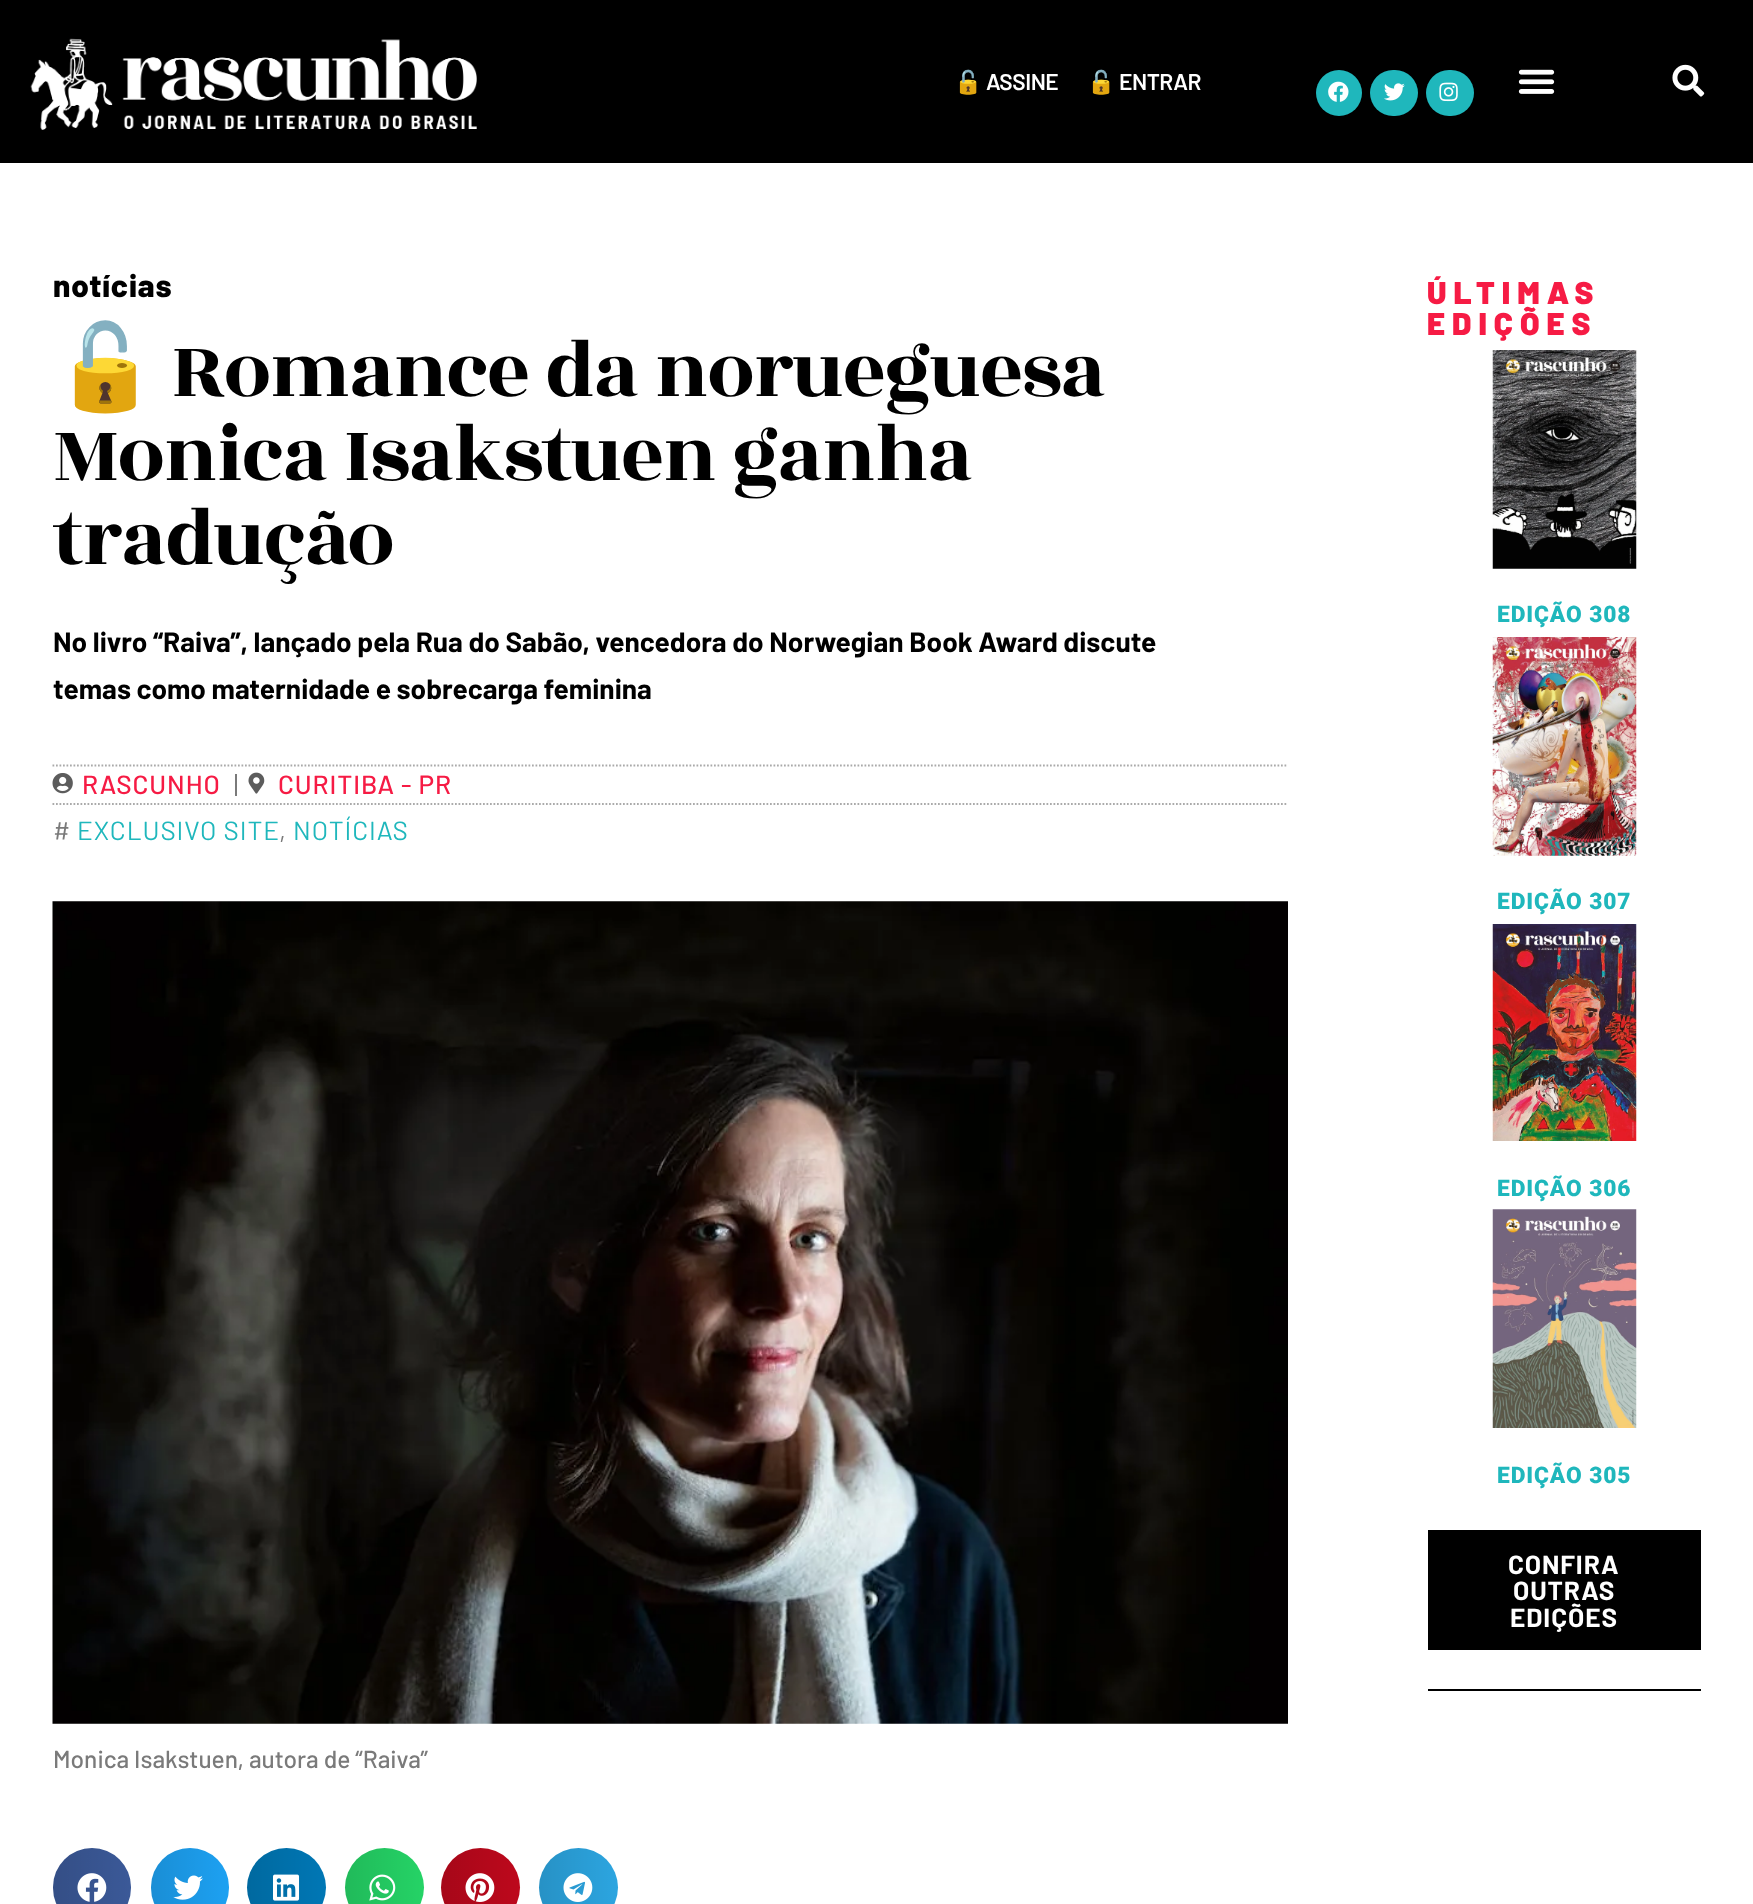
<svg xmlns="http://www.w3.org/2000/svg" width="1753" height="1904">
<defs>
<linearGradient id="g1" gradientUnits="userSpaceOnUse" x1="53" y1="1887" x2="131" y2="1887"><stop offset="0" stop-color="#000" stop-opacity="0.12"/><stop offset="1" stop-color="#000" stop-opacity="0"/></linearGradient>
<linearGradient id="g2" gradientUnits="userSpaceOnUse" x1="151" y1="1887" x2="229" y2="1887"><stop offset="0" stop-color="#000" stop-opacity="0.12"/><stop offset="1" stop-color="#000" stop-opacity="0"/></linearGradient>
<linearGradient id="g3" gradientUnits="userSpaceOnUse" x1="247" y1="1887" x2="326" y2="1887"><stop offset="0" stop-color="#000" stop-opacity="0.12"/><stop offset="1" stop-color="#000" stop-opacity="0"/></linearGradient>
<linearGradient id="g4" gradientUnits="userSpaceOnUse" x1="345" y1="1887" x2="424" y2="1887"><stop offset="0" stop-color="#000" stop-opacity="0.12"/><stop offset="1" stop-color="#000" stop-opacity="0"/></linearGradient>
<linearGradient id="g5" gradientUnits="userSpaceOnUse" x1="441" y1="1887" x2="520" y2="1887"><stop offset="0" stop-color="#000" stop-opacity="0.12"/><stop offset="1" stop-color="#000" stop-opacity="0"/></linearGradient>
<linearGradient id="g6" gradientUnits="userSpaceOnUse" x1="539" y1="1887" x2="618" y2="1887"><stop offset="0" stop-color="#000" stop-opacity="0.12"/><stop offset="1" stop-color="#000" stop-opacity="0"/></linearGradient>
</defs>
<rect width="100%" height="100%" fill="#fff"/>
<rect width="1753" height="163" fill="#000"/>
<image x="30" y="38" width="447" height="92" href="media/1.png"/>
<text x="954" y="90" style="font-family:Noto Color Emoji;font-size:22.75px;font-weight:bold;letter-spacing:-0.5px;fill:#fff">🔓</text>
<text x="986" y="90" style="font-family:Barlow;font-size:22.75px;font-weight:600;letter-spacing:-0.5px;fill:#fff">ASSINE</text>
<text x="1087" y="90" style="font-family:Noto Color Emoji;font-size:22.75px;font-weight:bold;letter-spacing:-0.5px;fill:#fff">🔓</text>
<text x="1119" y="90" style="font-family:Barlow;font-size:22.75px;font-weight:600;letter-spacing:-0.5px;fill:#fff">ENTRAR</text>
<circle cx="1339" cy="93" r="23" fill="#1fb7bc"/>
<image x="1328" y="81" width="21" height="21" href="media/2.png"/>
<rect x="1370" y="70" width="48" height="46" rx="23" fill="#1fb7bc"/>
<image x="1384" y="83" width="21" height="18" href="media/3.png"/>
<rect x="1426" y="70" width="48" height="46" rx="23" fill="#1fb7bc"/>
<image x="1439" y="82" width="19" height="20" href="media/4.png"/>
<image x="1518" y="69" width="37" height="25" href="media/5.png"/>
<image x="1672" y="64" width="33" height="33" href="media/6.png"/>
<text x="53" y="297" style="font-family:Barlow;font-size:31.5px;font-weight:800;letter-spacing:0.9px;fill:#000">notícias</text>
<text x="53" y="396" style="font-family:Noto Color Emoji;font-size:84px;letter-spacing:-1.4px;fill:#000">🔓</text>
<text x="172" y="396" style="font-family:Rozha One;font-size:84px;letter-spacing:-1.4px;fill:#000">Romance da norueguesa</text>
<text x="53" y="480" style="font-family:Rozha One;font-size:84px;letter-spacing:-1.4px;fill:#000">Monica Isakstuen ganha</text>
<text x="53" y="564" style="font-family:Rozha One;font-size:84px;letter-spacing:-1.4px;fill:#000">tradução</text>
<text x="53" y="652" style="font-family:Barlow;font-size:28px;font-weight:bold;fill:#000">No livro “Raiva”, lançado pela Rua do Sabão, vencedora do Norwegian Book Award discute</text>
<text x="53" y="699" style="font-family:Barlow;font-size:28px;font-weight:bold;fill:#000">temas como maternidade e sobrecarga feminina</text>
<path d="M52.5 765.5h1235.5" fill="none" stroke="#aaa" stroke-width="1.8" stroke-dasharray="1.75 1.75"/>
<path d="M52.5 804h1235.5" fill="none" stroke="#aaa" stroke-width="1.8" stroke-dasharray="1.75 1.75"/>
<image x="52" y="773" width="21" height="21" href="media/7.png"/>
<text x="82" y="794" style="font-family:Barlow;font-size:26.25px;font-weight:500;letter-spacing:0.9px;fill:#f61b44">RASCUNHO</text>
<rect x="235" y="774" width="2" height="22" fill="#7a7a7a"/>
<image x="248" y="772" width="17" height="22" href="media/8.png"/>
<text x="278" y="794" style="font-family:Barlow;font-size:26.25px;font-weight:500;letter-spacing:0.9px;fill:#f61b44">CURITIBA - PR</text>
<text x="53" y="840" style="font-family:Barlow;font-size:26.25px;letter-spacing:0.9px;fill:#7a7a7a">#</text>
<text x="77" y="840" style="font-family:Barlow;font-size:26.25px;letter-spacing:0.9px;fill:#1fb7bc">EXCLUSIVO SITE</text>
<text x="279" y="840" style="font-family:Barlow;font-size:26.25px;letter-spacing:0.9px;fill:#7a7a7a">,</text>
<text x="293" y="840" style="font-family:Barlow;font-size:26.25px;letter-spacing:0.9px;fill:#1fb7bc">NOTÍCIAS</text>
<image x="52" y="901" width="1236" height="823" href="media/9.png"/>
<text x="53" y="1768" style="font-family:Barlow;font-size:24.5px;font-weight:500;fill:#7a7a7a">Monica Isakstuen, autora de “Raiva”</text>
<rect x="53" y="1848" width="78" height="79" rx="39" fill="#3b5998"/>
<rect x="53" y="1848" width="78" height="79" rx="39" fill="url(#g1)"/>
<image x="77" y="1873" width="30" height="29" href="media/10.png"/>
<rect x="151" y="1848" width="78" height="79" rx="39" fill="#1da1f2"/>
<rect x="151" y="1848" width="78" height="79" rx="39" fill="url(#g2)"/>
<image x="173" y="1875" width="30" height="25" href="media/11.png"/>
<circle cx="286.5" cy="1887.5" r="39.5" fill="#0077b5"/>
<circle cx="286.5" cy="1887.5" r="39.5" fill="url(#g3)"/>
<image x="273" y="1874" width="27" height="27" href="media/12.png"/>
<circle cx="384.5" cy="1887.5" r="39.5" fill="#25d366"/>
<circle cx="384.5" cy="1887.5" r="39.5" fill="url(#g4)"/>
<image x="369" y="1874" width="27" height="27" href="media/13.png"/>
<circle cx="480.5" cy="1887.5" r="39.5" fill="#bd081c"/>
<circle cx="480.5" cy="1887.5" r="39.5" fill="url(#g5)"/>
<image x="465" y="1873" width="30" height="29" href="media/14.png"/>
<circle cx="578.5" cy="1887.5" r="39.5" fill="#2ca5e0"/>
<circle cx="578.5" cy="1887.5" r="39.5" fill="url(#g6)"/>
<image x="563" y="1873" width="30" height="29" href="media/15.png"/>
<text x="1427" y="304" style="font-family:Barlow;font-size:31.5px;font-weight:900;letter-spacing:7px;fill:#f61b44">ÚLTIMAS</text>
<text x="1427" y="335" style="font-family:Barlow;font-size:31.5px;font-weight:900;letter-spacing:7px;fill:#f61b44">EDIÇÕES</text>
<image x="1492" y="350" width="145" height="219" href="media/16.png"/>
<text x="1497" y="622" style="font-family:Roboto;font-size:22.75px;font-weight:900;letter-spacing:0.9px;fill:#1fb7bc">EDIÇÃO 308</text>
<image x="1492" y="637" width="145" height="219" href="media/17.png"/>
<text x="1497" y="909" style="font-family:Roboto;font-size:22.75px;font-weight:900;letter-spacing:0.9px;fill:#1fb7bc">EDIÇÃO 307</text>
<image x="1492" y="924" width="145" height="217" href="media/18.png"/>
<text x="1497" y="1196" style="font-family:Roboto;font-size:22.75px;font-weight:900;letter-spacing:0.9px;fill:#1fb7bc">EDIÇÃO 306</text>
<image x="1492" y="1209" width="145" height="219" href="media/19.png"/>
<text x="1497" y="1483" style="font-family:Roboto;font-size:22.75px;font-weight:900;letter-spacing:0.9px;fill:#1fb7bc">EDIÇÃO 305</text>
<rect x="1428" y="1530" width="273" height="120" fill="#000"/>
<text x="1508" y="1574" style="font-family:Barlow;font-size:26.25px;font-weight:bold;letter-spacing:0.9px;fill:#fff">CONFIRA</text>
<text x="1513" y="1600" style="font-family:Barlow;font-size:26.25px;font-weight:bold;letter-spacing:0.9px;fill:#fff">OUTRAS</text>
<text x="1510" y="1627" style="font-family:Barlow;font-size:26.25px;font-weight:bold;letter-spacing:0.9px;fill:#fff">EDIÇÕES</text>
<rect x="1428" y="1689" width="273" height="2" fill="#000"/>
</svg>
